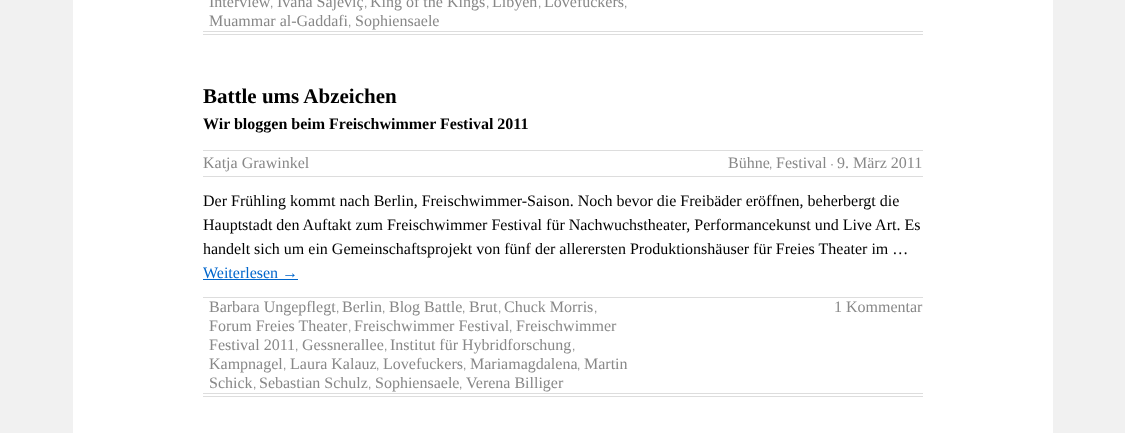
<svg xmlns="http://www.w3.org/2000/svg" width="1125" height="433">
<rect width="100%" height="100%" fill="#f1f1f1"/>
<rect x="73" width="980" height="433" fill="#fff"/>
<rect x="203" y="31" width="720" height="1" fill="#ddd"/>
<rect x="203" y="34" width="720" height="1" fill="#ddd"/>
<text x="209" y="7" style="font-family:Liberation Serif;font-size:16px;fill:#888">Interview</text>
<text x="270" y="7" style="font-family:Liberation Sans;font-size:12px;fill:#888">,</text>
<text x="277" y="7" style="font-family:Liberation Serif;font-size:16px;fill:#888">Ivana Sajeviç</text>
<text x="364" y="7" style="font-family:Liberation Sans;font-size:12px;fill:#888">,</text>
<text x="370" y="7" style="font-family:Liberation Serif;font-size:16px;fill:#888">King of the Kings</text>
<text x="486" y="7" style="font-family:Liberation Sans;font-size:12px;fill:#888">,</text>
<text x="492" y="7" style="font-family:Liberation Serif;font-size:16px;fill:#888">Libyen</text>
<text x="538" y="7" style="font-family:Liberation Sans;font-size:12px;fill:#888">,</text>
<text x="544" y="7" style="font-family:Liberation Serif;font-size:16px;fill:#888">Lovefuckers</text>
<text x="624" y="7" style="font-family:Liberation Sans;font-size:12px;fill:#888">,</text>
<text x="209" y="26" style="font-family:Liberation Serif;font-size:16px;fill:#888">Muammar al-Gaddafi</text>
<text x="348" y="26" style="font-family:Liberation Sans;font-size:12px;fill:#888">,</text>
<text x="355" y="26" style="font-family:Liberation Serif;font-size:16px;fill:#888">Sophiensaele</text>
<text x="203" y="103" style="font-family:Liberation Serif;font-size:21px;font-weight:bold;fill:#000">Battle ums Abzeichen</text>
<text x="203" y="129" style="font-family:Liberation Serif;font-size:16px;font-weight:bold;fill:#000">Wir bloggen beim Freischwimmer Festival 2011</text>
<rect x="203" y="150" width="720" height="1" fill="#ddd"/>
<rect x="203" y="176" width="720" height="1" fill="#ddd"/>
<text x="203" y="168" style="font-family:Liberation Serif;font-size:16px;fill:#888">Katja Grawinkel</text>
<text x="728" y="168" style="font-family:Liberation Serif;font-size:16px;fill:#888">Bühne</text>
<text x="776" y="168" style="font-family:Liberation Serif;font-size:16px;fill:#888">Festival</text>
<text x="830" y="168" style="font-family:Liberation Sans;font-size:12px;fill:#888">·</text>
<text x="837" y="168" style="font-family:Liberation Serif;font-size:16px;fill:#888">9. März 2011</text>
<text x="769" y="168" style="font-family:Liberation Sans;font-size:12px;fill:#888">,</text>
<text x="203" y="206" style="font-family:Liberation Serif;font-size:16px;fill:#000">Der Frühling kommt nach Berlin, Freischwimmer-Saison. Noch bevor die Freibäder eröffnen, beherbergt die</text>
<text x="203" y="230" style="font-family:Liberation Serif;font-size:16px;fill:#000">Hauptstadt den Auftakt zum Freischwimmer Festival für Nachwuchstheater, Performancekunst und Live Art. Es</text>
<text x="203" y="254" style="font-family:Liberation Serif;font-size:16px;fill:#000">handelt sich um ein Gemeinschaftsprojekt von fünf der allerersten Produktionshäuser für Freies Theater im …</text>
<text x="203" y="278" style="font-family:Liberation Serif;font-size:16px;fill:#06c">Weiterlesen →</text>
<rect x="203" y="279" width="95" height="1" fill="#06c"/>
<rect x="203" y="297" width="720" height="1" fill="#ddd"/>
<rect x="203" y="393" width="720" height="1" fill="#ddd"/>
<rect x="203" y="396" width="720" height="1" fill="#ddd"/>
<text x="209" y="312" style="font-family:Liberation Serif;font-size:16px;fill:#888">Barbara Ungepflegt</text>
<text x="336" y="312" style="font-family:Liberation Sans;font-size:12px;fill:#888">,</text>
<text x="342" y="312" style="font-family:Liberation Serif;font-size:16px;fill:#888">Berlin</text>
<text x="382" y="312" style="font-family:Liberation Sans;font-size:12px;fill:#888">,</text>
<text x="389" y="312" style="font-family:Liberation Serif;font-size:16px;fill:#888">Blog Battle</text>
<text x="462" y="312" style="font-family:Liberation Sans;font-size:12px;fill:#888">,</text>
<text x="469" y="312" style="font-family:Liberation Serif;font-size:16px;fill:#888">Brut</text>
<text x="498" y="312" style="font-family:Liberation Sans;font-size:12px;fill:#888">,</text>
<text x="504" y="312" style="font-family:Liberation Serif;font-size:16px;fill:#888">Chuck Morris</text>
<text x="594" y="312" style="font-family:Liberation Sans;font-size:12px;fill:#888">,</text>
<text x="209" y="331" style="font-family:Liberation Serif;font-size:16px;fill:#888">Forum Freies Theater</text>
<text x="348" y="331" style="font-family:Liberation Sans;font-size:12px;fill:#888">,</text>
<text x="354" y="331" style="font-family:Liberation Serif;font-size:16px;fill:#888">Freischwimmer Festival</text>
<text x="509" y="331" style="font-family:Liberation Sans;font-size:12px;fill:#888">,</text>
<text x="516" y="331" style="font-family:Liberation Serif;font-size:16px;fill:#888">Freischwimmer</text>
<text x="209" y="350" style="font-family:Liberation Serif;font-size:16px;fill:#888">Festival 2011</text>
<text x="295" y="350" style="font-family:Liberation Sans;font-size:12px;fill:#888">,</text>
<text x="302" y="350" style="font-family:Liberation Serif;font-size:16px;fill:#888">Gessnerallee</text>
<text x="384" y="350" style="font-family:Liberation Sans;font-size:12px;fill:#888">,</text>
<text x="390" y="350" style="font-family:Liberation Serif;font-size:16px;fill:#888">Institut für Hybridforschung</text>
<text x="572" y="350" style="font-family:Liberation Sans;font-size:12px;fill:#888">,</text>
<text x="209" y="369" style="font-family:Liberation Serif;font-size:16px;fill:#888">Kampnagel</text>
<text x="283" y="369" style="font-family:Liberation Sans;font-size:12px;fill:#888">,</text>
<text x="290" y="369" style="font-family:Liberation Serif;font-size:16px;fill:#888">Laura Kalauz</text>
<text x="376" y="369" style="font-family:Liberation Sans;font-size:12px;fill:#888">,</text>
<text x="383" y="369" style="font-family:Liberation Serif;font-size:16px;fill:#888">Lovefuckers</text>
<text x="463" y="369" style="font-family:Liberation Sans;font-size:12px;fill:#888">,</text>
<text x="470" y="369" style="font-family:Liberation Serif;font-size:16px;fill:#888">Mariamagdalena</text>
<text x="577" y="369" style="font-family:Liberation Sans;font-size:12px;fill:#888">,</text>
<text x="584" y="369" style="font-family:Liberation Serif;font-size:16px;fill:#888">Martin</text>
<text x="209" y="388" style="font-family:Liberation Serif;font-size:16px;fill:#888">Schick</text>
<text x="253" y="388" style="font-family:Liberation Sans;font-size:12px;fill:#888">,</text>
<text x="259" y="388" style="font-family:Liberation Serif;font-size:16px;fill:#888">Sebastian Schulz</text>
<text x="368" y="388" style="font-family:Liberation Sans;font-size:12px;fill:#888">,</text>
<text x="375" y="388" style="font-family:Liberation Serif;font-size:16px;fill:#888">Sophiensaele</text>
<text x="459" y="388" style="font-family:Liberation Sans;font-size:12px;fill:#888">,</text>
<text x="466" y="388" style="font-family:Liberation Serif;font-size:16px;fill:#888">Verena Billiger</text>
<text x="834" y="312" style="font-family:Liberation Serif;font-size:16px;fill:#888">1 Kommentar</text>
</svg>
